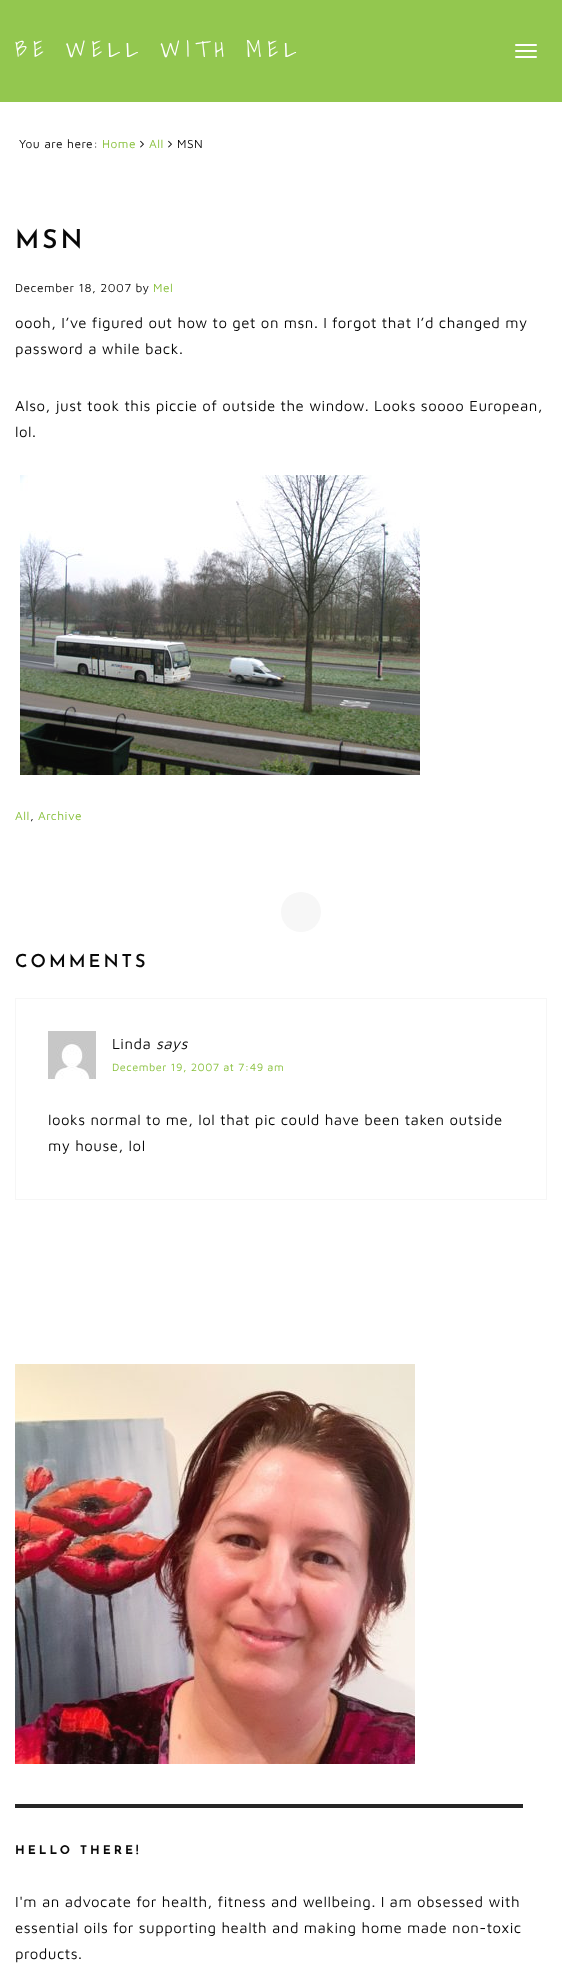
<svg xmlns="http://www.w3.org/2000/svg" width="562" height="1982">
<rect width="100%" height="100%" fill="#fff"/>
<rect width="562" height="102" fill="#93c74f"/>
<text x="15" y="57" style="font-family:Shadows Into Light;font-size:22.4px;font-weight:300;letter-spacing:6px;fill:#fff">BE WELL WITH MEL</text>
<rect x="515" y="44" width="22" height="2" rx="1" fill="#fff"/>
<rect x="515" y="50" width="22" height="2" rx="1" fill="#fff"/>
<rect x="515" y="56" width="22" height="2" rx="1" fill="#fff"/>
<text x="19" y="148" style="font-family:Maven Pro;font-size:12px;letter-spacing:0.5px;fill:#080808">You are here:</text>
<text x="102" y="148" style="font-family:Maven Pro;font-size:12px;letter-spacing:0.5px;fill:#88c03c">Home</text>
<image x="140" y="140" width="4" height="8" href="media/1.png"/>
<text x="149" y="148" style="font-family:Maven Pro;font-size:12px;letter-spacing:0.5px;fill:#88c03c">All</text>
<image x="168" y="140" width="4" height="8" href="media/1.png"/>
<text x="177" y="148" style="font-family:Maven Pro;font-size:12px;letter-spacing:0.5px;fill:#080808">MSN</text>
<text x="15" y="248" style="font-family:Josefin Sans;font-size:26px;font-weight:600;letter-spacing:3px;fill:#080808">MSN</text>
<text x="15" y="292" style="font-family:Maven Pro;font-size:12px;letter-spacing:0.5px;fill:#080808">December 18, 2007 by</text>
<text x="153" y="292" style="font-family:Maven Pro;font-size:12px;letter-spacing:0.5px;fill:#88c03c">Mel</text>
<text x="15" y="328" style="font-family:Maven Pro;font-size:15px;letter-spacing:0.5px;fill:#080808">oooh, I’ve figured out how to get on msn. I forgot that I’d changed my</text>
<text x="15" y="354" style="font-family:Maven Pro;font-size:15px;letter-spacing:0.5px;fill:#080808">password a while back.</text>
<text x="15" y="411" style="font-family:Maven Pro;font-size:15px;letter-spacing:0.5px;fill:#080808">Also, just took this piccie of outside the window. Looks soooo European,</text>
<text x="15" y="437" style="font-family:Maven Pro;font-size:15px;letter-spacing:0.5px;fill:#080808">lol.</text>
<image x="20" y="475" width="400" height="300" href="media/2.png"/>
<text x="15" y="820" style="font-family:Maven Pro;font-size:12px;letter-spacing:0.5px;fill:#88c03c">All</text>
<text x="30" y="820" style="font-family:Maven Pro;font-size:12px;letter-spacing:0.5px;fill:#080808">,</text>
<text x="38" y="820" style="font-family:Maven Pro;font-size:12px;letter-spacing:0.5px;fill:#88c03c">Archive</text>
<text x="15" y="967" style="font-family:Josefin Sans;font-size:18px;font-weight:600;letter-spacing:3px;fill:#080808">COMMENTS</text>
<rect x="15.5" y="998.5" width="531" height="201" fill="none" stroke="#f6f6f6"/>
<image x="48" y="1031" width="48" height="48" href="media/3.png"/>
<text x="112" y="1049" style="font-family:Maven Pro;font-size:15px;letter-spacing:0.5px;fill:#080808">Linda</text>
<text x="156" y="1049" style="font-family:Maven Pro;font-size:15px;font-style:italic;letter-spacing:0.5px;fill:#080808">says</text>
<text x="112" y="1071" style="font-family:Maven Pro;font-size:11px;letter-spacing:0.5px;fill:#88c03c">December 19, 2007 at 7:49 am</text>
<text x="48" y="1125" style="font-family:Maven Pro;font-size:15px;letter-spacing:0.5px;fill:#080808">looks normal to me, lol that pic could have been taken outside</text>
<text x="48" y="1151" style="font-family:Maven Pro;font-size:15px;letter-spacing:0.5px;fill:#080808">my house, lol</text>
<image x="15" y="1364" width="400" height="400" href="media/4.png"/>
<rect x="15" y="1804" width="508" height="4" fill="#262626"/>
<text x="15" y="1854" style="font-family:Josefin Sans;font-size:12px;font-weight:bold;letter-spacing:3px;fill:#080808">HELLO THERE!</text>
<text x="15" y="1907" style="font-family:Maven Pro;font-size:15px;letter-spacing:0.5px;fill:#080808">I'm an advocate for health, fitness and wellbeing. I am obsessed with</text>
<text x="15" y="1933" style="font-family:Maven Pro;font-size:15px;letter-spacing:0.5px;fill:#080808">essential oils for supporting health and making home made non-toxic</text>
<text x="15" y="1959" style="font-family:Maven Pro;font-size:15px;letter-spacing:0.5px;fill:#080808">products.</text>
<circle cx="301" cy="912" r="20" fill="#f7f7f7"/>
</svg>
